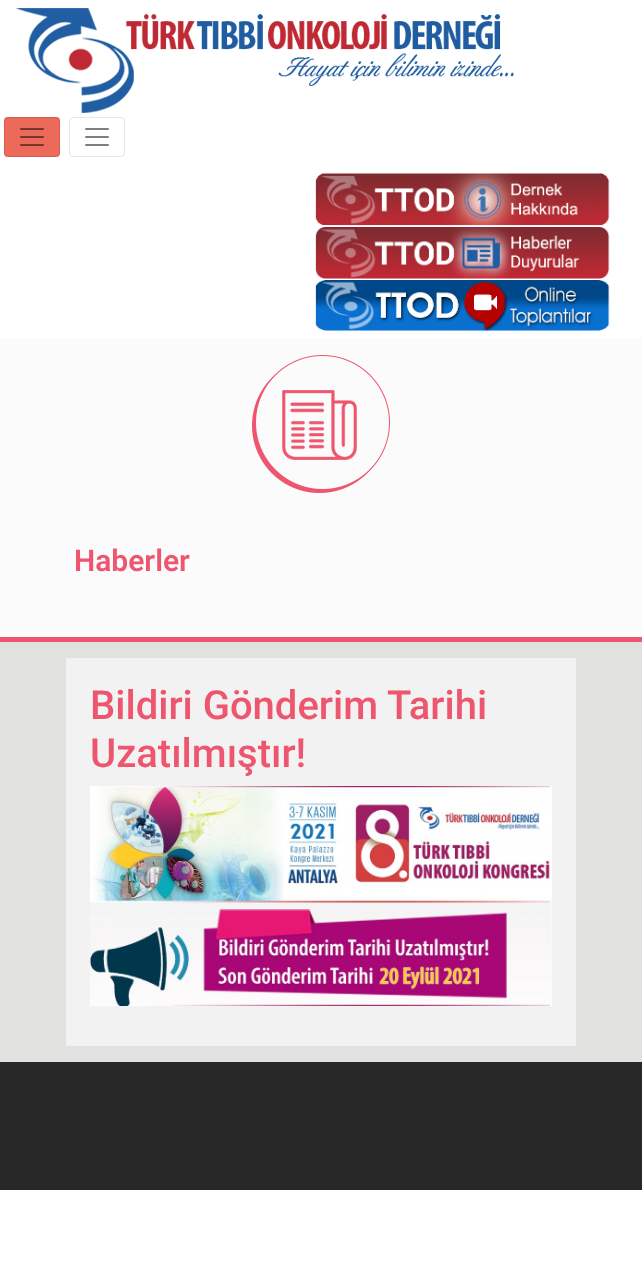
<svg xmlns="http://www.w3.org/2000/svg" width="642" height="1280">
<rect width="100%" height="100%" fill="#fff"/>
<image x="16" y="8" width="498" height="105" href="media/1.png"/>
<rect x="4" y="117" width="56" height="40" rx="4" fill="#ed6a5a"/>
<rect x="4.5" y="117.5" width="55" height="39" rx="3.5" fill="none" stroke="#0000001a"/>
<image x="20" y="128" width="24" height="18" href="media/2.png"/>
<rect x="69.5" y="117.5" width="55" height="39" rx="3.5" fill="none" stroke="#e6e6e6"/>
<image x="85" y="128" width="24" height="18" href="media/3.png"/>
<image x="315" y="173" width="295" height="53" href="media/4.png"/>
<image x="315" y="227" width="295" height="52" href="media/5.png"/>
<image x="315" y="280" width="295" height="51" href="media/6.png"/>
<rect y="339" width="642" height="298" fill="#fbfbfb"/>
<rect y="637" width="642" height="5" fill="#ee566f"/>
<image x="252" y="355" width="138" height="138" href="media/7.png"/>
<text x="74" y="571" style="font-family:Roboto;font-size:30px;font-weight:600;fill:#ee566f">Haberler</text>
<rect y="642" width="642" height="420" fill="#e1e2e0"/>
<rect x="66" y="658" width="510" height="388" fill="#f2f2f2"/>
<text x="90" y="719" style="font-family:Roboto;font-size:40px;font-weight:500;fill:#ee566f">Bildiri Gönderim Tarihi</text>
<text x="90" y="767" style="font-family:Roboto;font-size:40px;font-weight:500;fill:#ee566f">Uzatılmıştır!</text>
<image x="90" y="786" width="462" height="220" href="media/8.png"/>
<rect y="1062" width="642" height="128" fill="#282828"/>
</svg>
